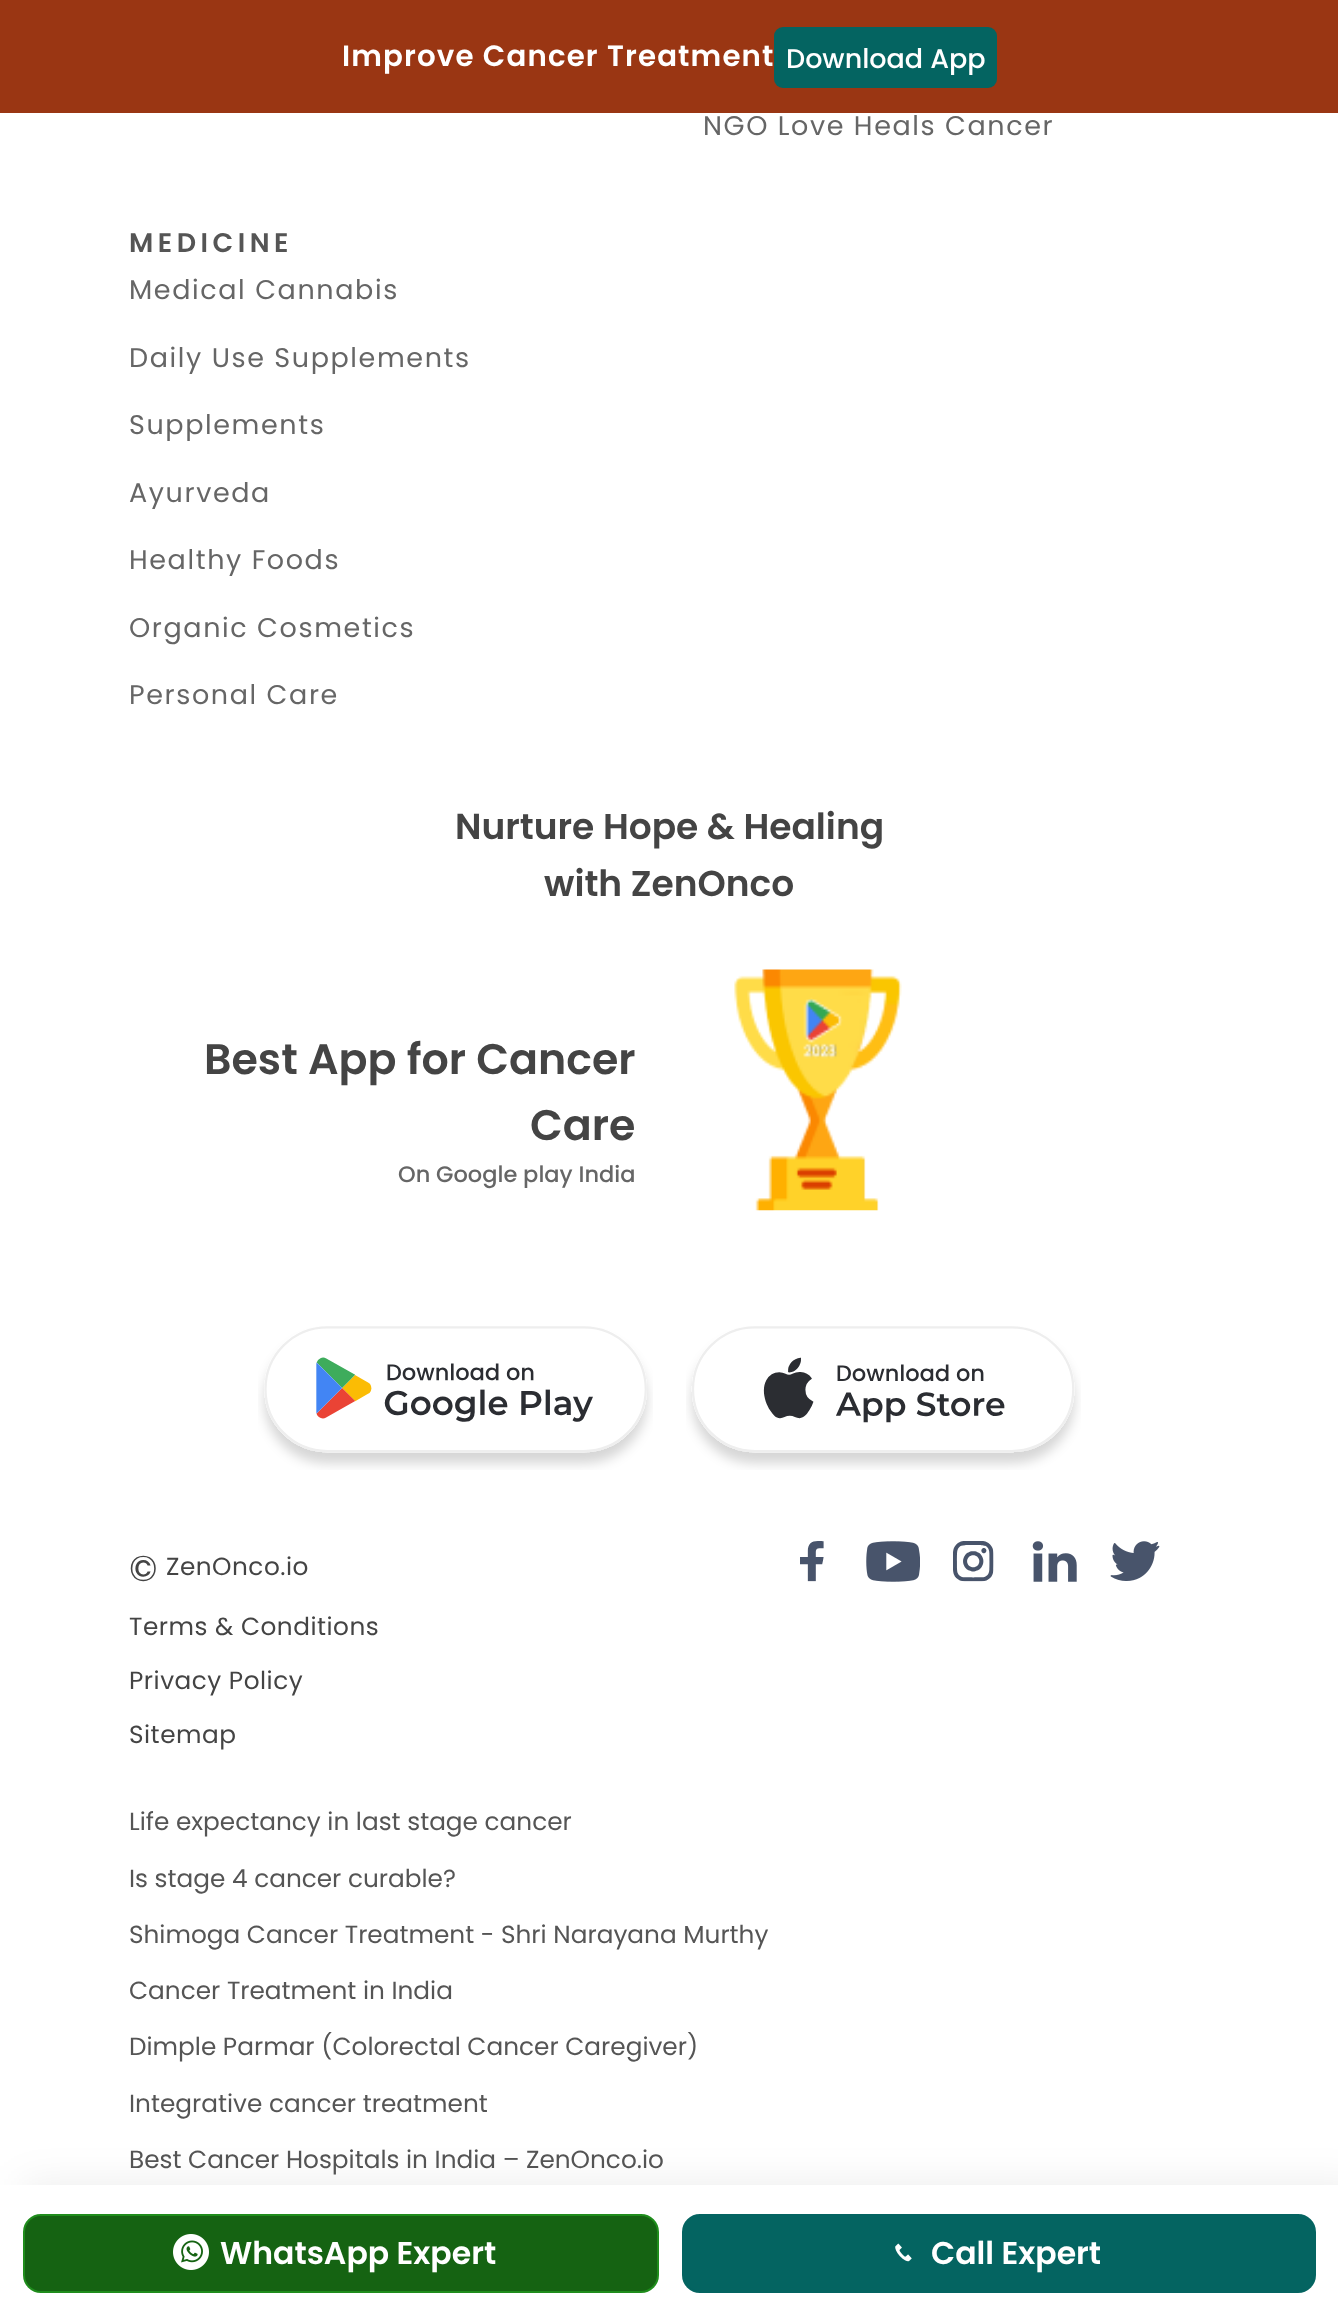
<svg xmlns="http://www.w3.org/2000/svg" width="1338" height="2319">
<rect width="100%" height="100%" fill="#fff"/>
<rect width="1338" height="113" fill="#9a3613"/>
<text x="342" y="66" style="font-family:Poppins;font-size:29.25px;font-weight:600;letter-spacing:1.15px;fill:#fff">Improve Cancer Treatment</text>
<rect x="774" y="27" width="223" height="61" rx="9" fill="#046461"/>
<text x="786" y="68" style="font-family:Poppins;font-size:27px;font-weight:500;fill:#fff">Download App</text>
<text x="703" y="135" style="font-family:Poppins;font-size:27px;letter-spacing:1.6px;fill:#666">NGO Love Heals Cancer</text>
<text x="129" y="252" style="font-family:Poppins;font-size:27px;font-weight:600;letter-spacing:4.5px;fill:#555">MEDICINE</text>
<text x="129" y="299" style="font-family:Poppins;font-size:27px;letter-spacing:1.6px;fill:#666">Medical Cannabis</text>
<text x="129" y="367" style="font-family:Poppins;font-size:27px;letter-spacing:1.6px;fill:#666">Daily Use Supplements</text>
<text x="129" y="434" style="font-family:Poppins;font-size:27px;letter-spacing:1.6px;fill:#666">Supplements</text>
<text x="129" y="502" style="font-family:Poppins;font-size:27px;letter-spacing:1.6px;fill:#666">Ayurveda</text>
<text x="129" y="569" style="font-family:Poppins;font-size:27px;letter-spacing:1.6px;fill:#666">Healthy Foods</text>
<text x="129" y="637" style="font-family:Poppins;font-size:27px;letter-spacing:1.6px;fill:#666">Organic Cosmetics</text>
<text x="129" y="704" style="font-family:Poppins;font-size:27px;letter-spacing:1.6px;fill:#666">Personal Care</text>
<text x="455" y="839" style="font-family:Poppins;font-size:36px;font-weight:600;fill:#444">Nurture Hope &amp; Healing</text>
<text x="544" y="896" style="font-family:Poppins;font-size:36px;font-weight:600;fill:#444">with ZenOnco</text>
<text x="204" y="1074" style="font-family:Poppins;font-size:42.75px;font-weight:600;fill:#444">Best App for Cancer</text>
<text x="530" y="1140" style="font-family:Poppins;font-size:42.75px;font-weight:600;fill:#444">Care</text>
<text x="398" y="1182" style="font-family:Poppins;font-size:22.5px;font-weight:500;fill:#666">On Google play India</text>
<image x="734" y="969" width="168" height="242" href="media/1.png"/>
<image x="258" y="1326" width="395" height="144" href="media/2.png"/>
<image x="686" y="1326" width="395" height="144" href="media/3.png"/>
<text x="129" y="1581" style="font-family:Poppins;font-size:36px;letter-spacing:0.5px;fill:#444">©</text>
<text x="166" y="1575" style="font-family:Poppins;font-size:24.75px;letter-spacing:0.5px;fill:#444">ZenOnco.io</text>
<text x="129" y="1635" style="font-family:Poppins;font-size:24.75px;letter-spacing:0.5px;fill:#444">Terms &amp; Conditions</text>
<text x="129" y="1689" style="font-family:Poppins;font-size:24.75px;letter-spacing:0.5px;fill:#444">Privacy Policy</text>
<text x="129" y="1743" style="font-family:Poppins;font-size:24.75px;letter-spacing:0.5px;fill:#444">Sitemap</text>
<image x="800" y="1541" width="24" height="41" href="media/4.png"/>
<image x="866" y="1541" width="54" height="41" href="media/5.png"/>
<image x="953" y="1541" width="41" height="41" href="media/6.png"/>
<image x="1032" y="1541" width="45" height="41" href="media/7.png"/>
<image x="1110" y="1541" width="50" height="40" href="media/8.png"/>
<text x="129" y="1830" style="font-family:Poppins;font-size:24.75px;fill:#555">Life expectancy in last stage cancer</text>
<text x="129" y="1887" style="font-family:Poppins;font-size:24.75px;fill:#555">Is stage 4 cancer curable?</text>
<text x="129" y="1943" style="font-family:Poppins;font-size:24.75px;fill:#555">Shimoga Cancer Treatment - Shri Narayana Murthy</text>
<text x="129" y="1999" style="font-family:Poppins;font-size:24.75px;fill:#555">Cancer Treatment in India</text>
<text x="129" y="2055" style="font-family:Poppins;font-size:24.75px;fill:#555">Dimple Parmar (Colorectal Cancer Caregiver)</text>
<text x="129" y="2112" style="font-family:Poppins;font-size:24.75px;fill:#555">Integrative cancer treatment</text>
<text x="129" y="2168" style="font-family:Poppins;font-size:24.75px;fill:#555">Best Cancer Hospitals in India – ZenOnco.io</text>
<rect x="23" y="2185" width="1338" height="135" fill="#00000014" filter="blur(20px)"/>
<rect y="2185" width="1338" height="134" fill="#fff"/>
<rect x="24" y="2215" width="634" height="77" rx="17" fill="#156312" stroke="#1f8d1c" stroke-width="2"/>
<image x="173" y="2234" width="36" height="36" href="media/9.png"/>
<text x="220" y="2264" style="font-family:Poppins;font-size:31.5px;font-weight:600;fill:#fff">WhatsApp Expert</text>
<rect x="683" y="2215" width="632" height="77" rx="17" fill="#046461" stroke="#046461" stroke-width="2"/>
<image x="895" y="2243" width="17" height="19" href="media/10.png"/>
<text x="931" y="2264" style="font-family:Poppins;font-size:31.5px;font-weight:600;fill:#fff">Call Expert</text>
</svg>
